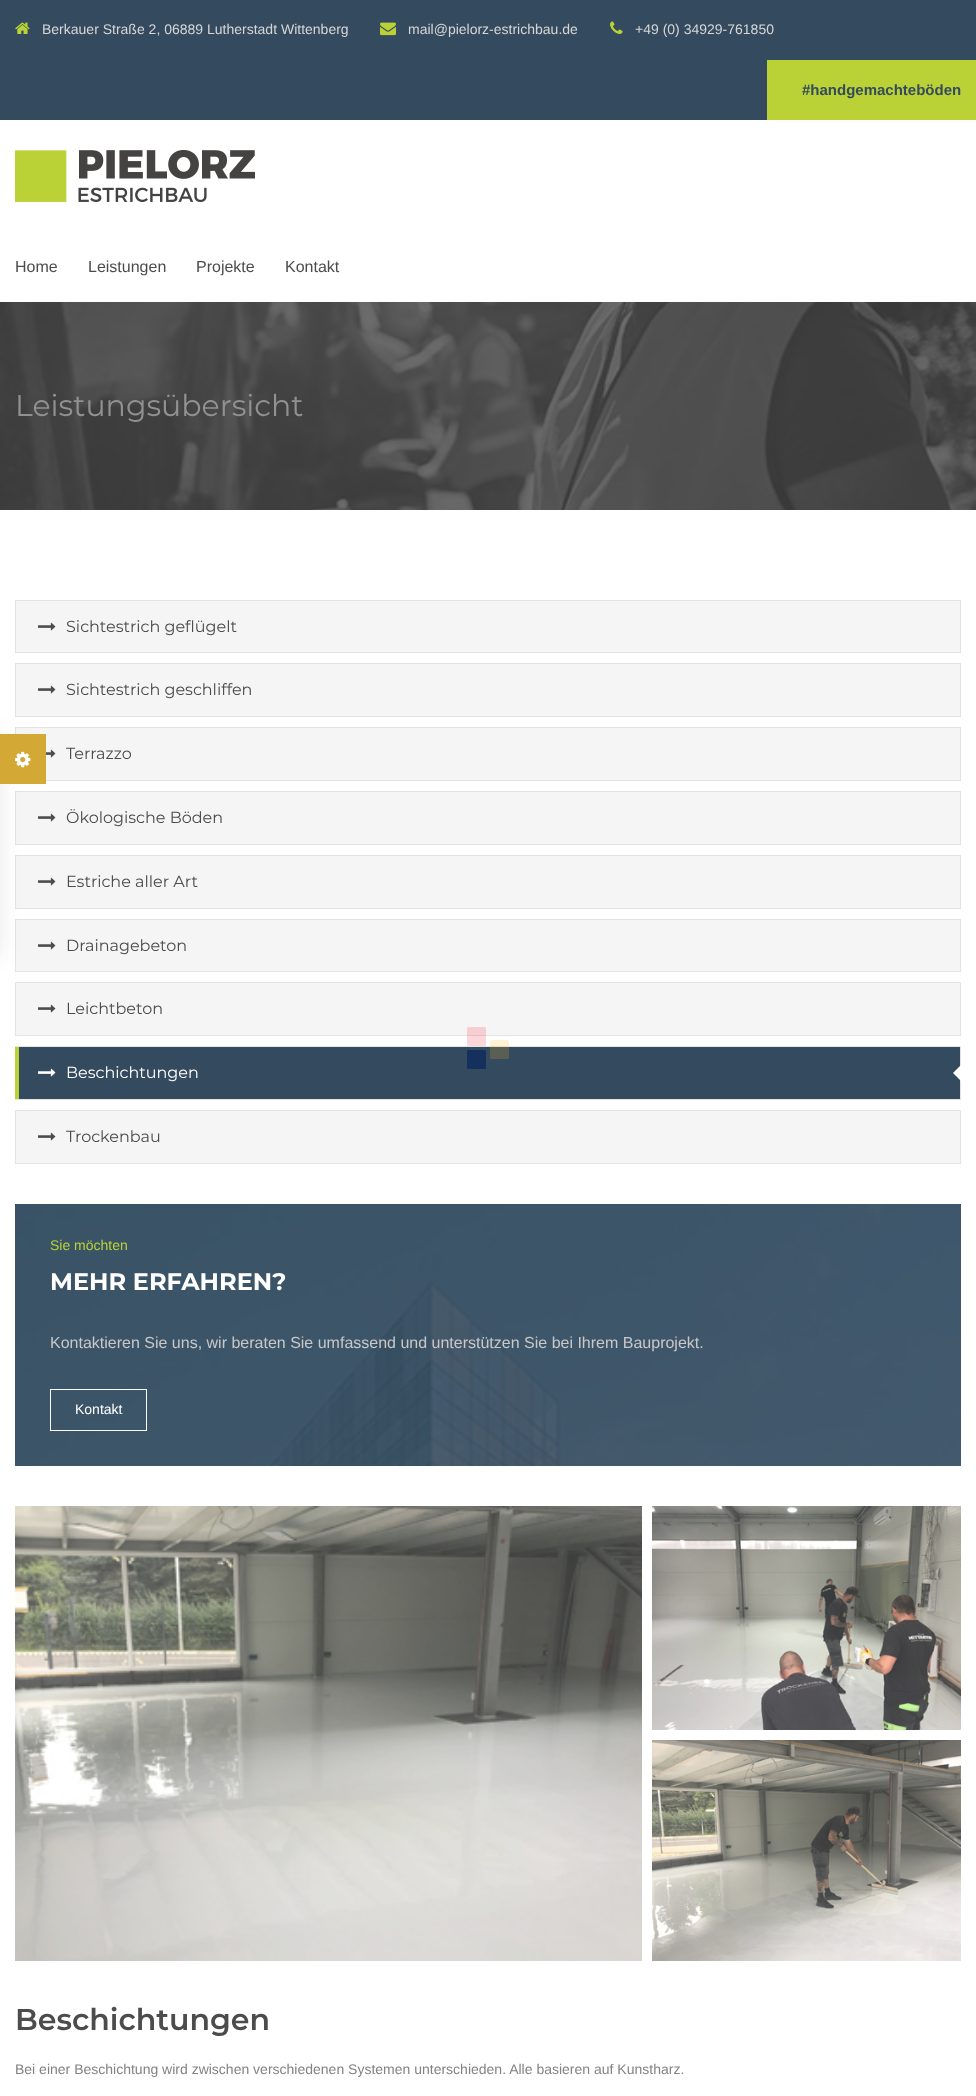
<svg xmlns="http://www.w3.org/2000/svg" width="976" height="2096">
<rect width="100%" height="100%" fill="#fff"/>
<rect width="976" height="120" fill="#344a5e"/>
<image x="15" y="22" width="15" height="12" href="media/1.png"/>
<text x="42" y="34" style="font-family:Arimo;font-size:14px;fill:#d6d6d6">Berkauer Straße 2, 06889 Lutherstadt Wittenberg</text>
<image x="380" y="22" width="16" height="14" href="media/2.png"/>
<text x="408" y="34" style="font-family:Arimo;font-size:14px;fill:#d6d6d6">mail@pielorz-estrichbau.de</text>
<image x="610" y="21" width="13" height="13" href="media/3.png"/>
<text x="635" y="34" style="font-family:Arimo;font-size:14px;fill:#d6d6d6">+49 (0) 34929-761850</text>
<rect x="767" y="60" width="209" height="60" fill="#bad235"/>
<text x="802" y="95" style="font-family:Arimo;font-size:15px;font-weight:bold;fill:#344a5e">#handgemachteböden</text>
<image x="15" y="150" width="240" height="52" href="media/4.png"/>
<text x="15" y="272" style="font-family:Arimo;font-size:16px;fill:#4c4c4c">Home</text>
<text x="88" y="272" style="font-family:Arimo;font-size:16px;fill:#4c4c4c">Leistungen</text>
<text x="196" y="272" style="font-family:Arimo;font-size:16px;fill:#4c4c4c">Projekte</text>
<text x="285" y="272" style="font-family:Arimo;font-size:16px;fill:#4c4c4c">Kontakt</text>
<image x="0" y="302" width="976" height="208" href="media/5.png"/>
<text x="15" y="416" style="font-family:Montserrat;font-size:30px;fill:#919191">Leistungsübersicht</text>
<rect x="15.5" y="600.5" width="945" height="52" fill="#f5f5f5" stroke="#e3e3e3"/>
<image x="38" y="622" width="18" height="9" href="media/6.png"/>
<text x="66" y="632" style="font-family:Montserrat;font-size:16px;fill:#4c4c4c">Sichtestrich geflügelt</text>
<rect x="15.5" y="663.5" width="945" height="53" fill="#f5f5f5" stroke="#e3e3e3"/>
<image x="38" y="685" width="18" height="9" href="media/6.png"/>
<text x="66" y="695" style="font-family:Montserrat;font-size:16px;fill:#4c4c4c">Sichtestrich geschliffen</text>
<rect x="15.5" y="727.5" width="945" height="53" fill="#f5f5f5" stroke="#e3e3e3"/>
<image x="46" y="749" width="10" height="9" href="media/7.png"/>
<text x="66" y="759" style="font-family:Montserrat;font-size:16px;fill:#4c4c4c">Terrazzo</text>
<rect x="15.5" y="791.5" width="945" height="53" fill="#f5f5f5" stroke="#e3e3e3"/>
<image x="38" y="813" width="18" height="9" href="media/6.png"/>
<text x="66" y="823" style="font-family:Montserrat;font-size:16px;fill:#4c4c4c">Ökologische Böden</text>
<rect x="15.5" y="855.5" width="945" height="53" fill="#f5f5f5" stroke="#e3e3e3"/>
<image x="38" y="877" width="18" height="9" href="media/6.png"/>
<text x="66" y="887" style="font-family:Montserrat;font-size:16px;fill:#4c4c4c">Estriche aller Art</text>
<rect x="15.5" y="919.5" width="945" height="52" fill="#f5f5f5" stroke="#e3e3e3"/>
<image x="38" y="941" width="18" height="9" href="media/6.png"/>
<text x="66" y="951" style="font-family:Montserrat;font-size:16px;fill:#4c4c4c">Drainagebeton</text>
<rect x="15.5" y="982.5" width="945" height="53" fill="#f5f5f5" stroke="#e3e3e3"/>
<image x="38" y="1004" width="18" height="9" href="media/6.png"/>
<text x="66" y="1014" style="font-family:Montserrat;font-size:16px;fill:#4c4c4c">Leichtbeton</text>
<rect x="19" y="1047" width="941" height="52" fill="#344a5e"/>
<rect x="15.5" y="1046.5" width="945" height="53" fill="none" stroke="#e3e3e3"/>
<rect x="15" y="1047" width="4" height="52" fill="#bad235"/>
<image x="38" y="1068" width="18" height="9" href="media/8.png"/>
<text x="66" y="1078" style="font-family:Montserrat;font-size:16px;fill:#fff">Beschichtungen</text>
<path d="M961 1065v16l-8-8z" fill="#fff"/>
<rect x="15.5" y="1110.5" width="945" height="53" fill="#f5f5f5" stroke="#e3e3e3"/>
<image x="38" y="1132" width="18" height="9" href="media/6.png"/>
<text x="66" y="1142" style="font-family:Montserrat;font-size:16px;fill:#4c4c4c">Trockenbau</text>
<image x="15" y="1204" width="946" height="262" href="media/9.png"/>
<text x="50" y="1250" style="font-family:Arimo;font-size:14px;fill:#bad235">Sie möchten</text>
<text x="50" y="1290" style="font-family:Montserrat;font-size:24px;font-weight:bold;fill:#fff">MEHR ERFAHREN?</text>
<text x="50" y="1348" style="font-family:Arimo;font-size:16px;fill:#c8c8c8">Kontaktieren Sie uns, wir beraten Sie umfassend und unterstützen Sie bei Ihrem Bauprojekt.</text>
<rect x="50.5" y="1389.5" width="96" height="41" fill="none" stroke="#fff"/>
<text x="75" y="1414" style="font-family:Arimo;font-size:14px;fill:#fff">Kontakt</text>
<image x="15" y="1506" width="627" height="455" href="media/10.png"/>
<image x="652" y="1506" width="309" height="224" href="media/11.png"/>
<image x="652" y="1740" width="309" height="221" href="media/12.png"/>
<text x="15" y="2030" style="font-family:Montserrat;font-size:30px;font-weight:600;fill:#4c4c4c">Beschichtungen</text>
<text x="15" y="2074" style="font-family:Arimo;font-size:14px;fill:#838383">Bei einer Beschichtung wird zwischen verschiedenen Systemen unterschieden. Alle basieren auf Kunstharz.</text>
<rect x="-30" y="733" width="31" height="222" fill="#3030301a" filter="blur(10px)"/>
<rect y="734" width="46" height="50" fill="#d3a835"/>
<image x="15" y="751" width="16" height="17" href="media/13.png"/>
<rect x="490" y="1040" width="19" height="19" rx="1.5" fill="#fabf2430"/>
<rect x="467" y="1027" width="19" height="19" rx="1.5" fill="#f1263c30"/>
<rect x="467" y="1050" width="19" height="19" rx="1.5" fill="#15305c"/>
</svg>
